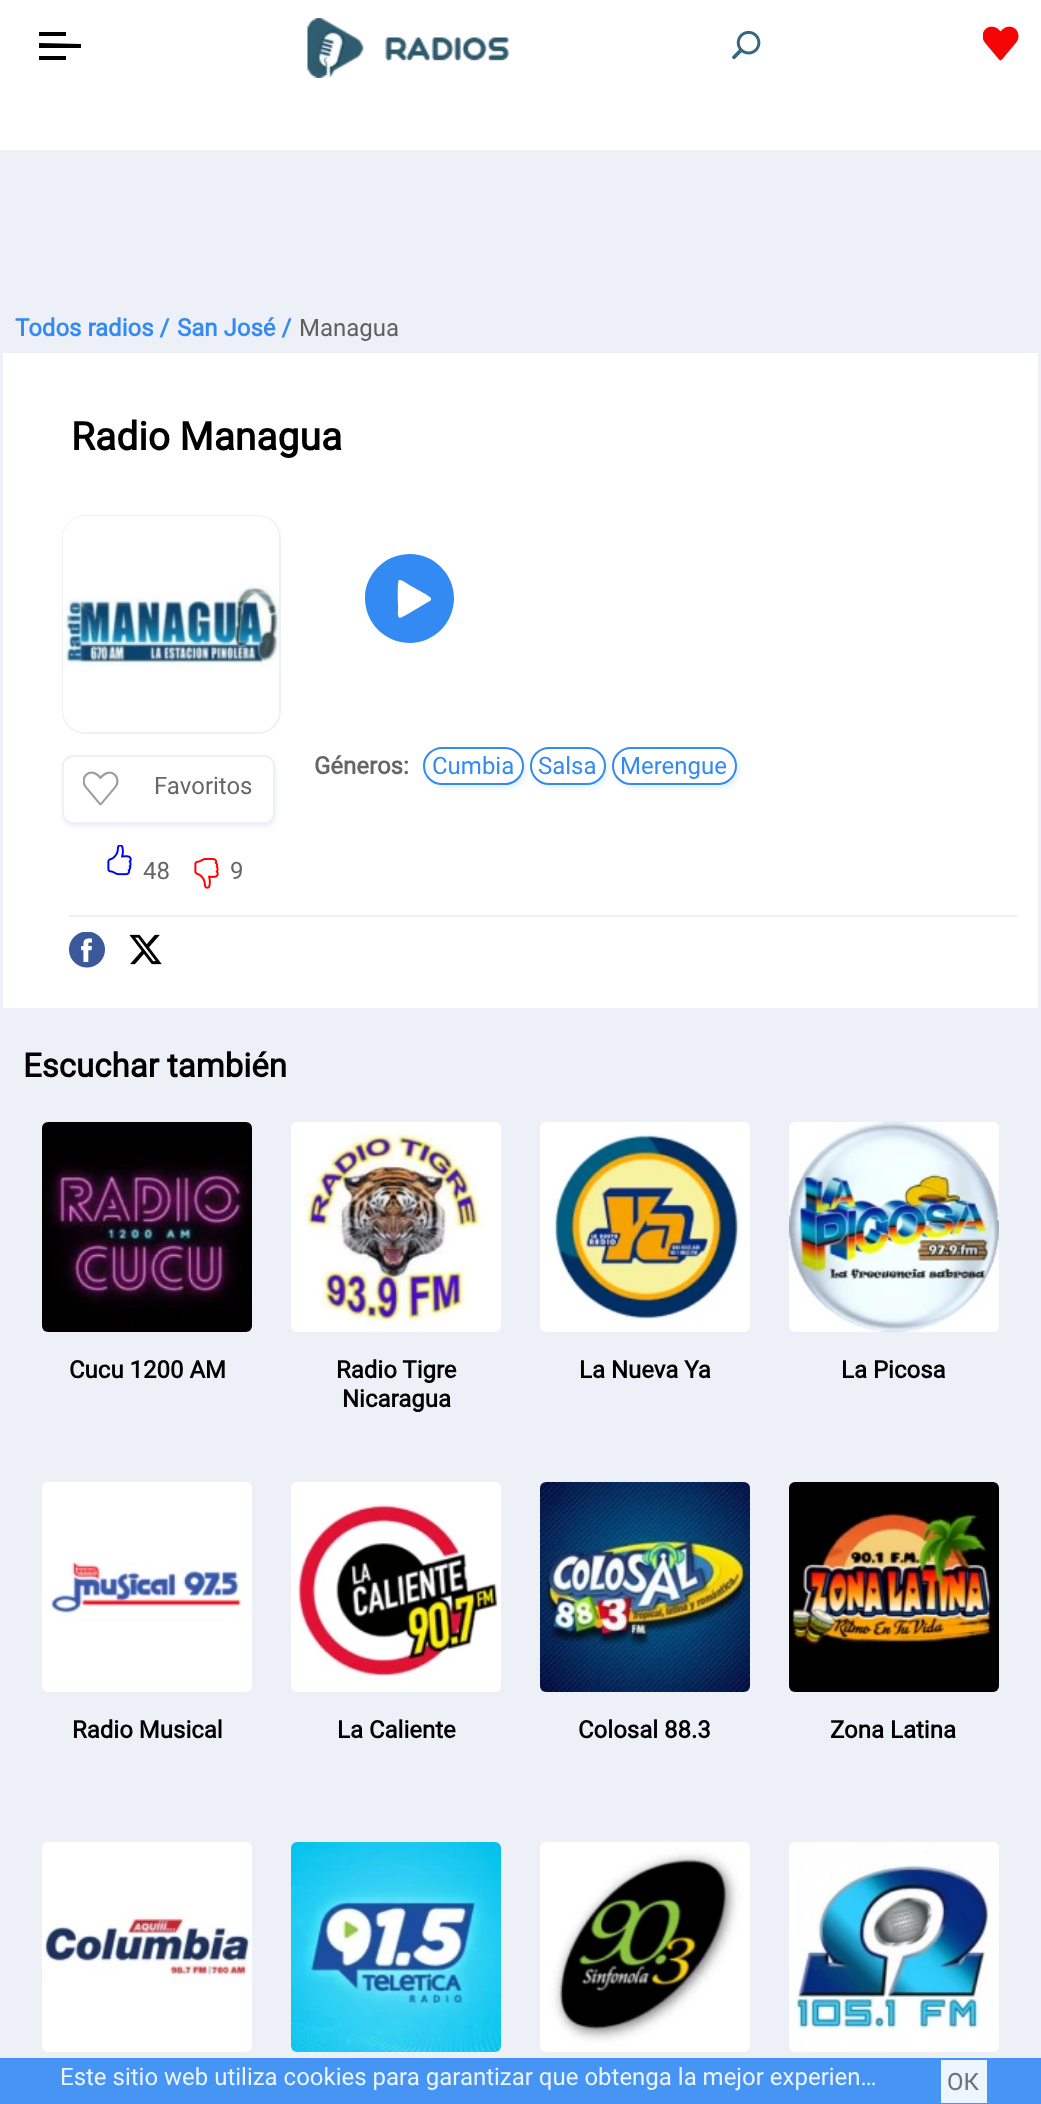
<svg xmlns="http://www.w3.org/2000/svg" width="1041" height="2104">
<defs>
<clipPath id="clip1"><path d="M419 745h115v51h-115zm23 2h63c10.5 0 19 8.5 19 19c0 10.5-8.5 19-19 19h-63c-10.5 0-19-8.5-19-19c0-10.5 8.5-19 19-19z" clip-rule="evenodd"/></clipPath>
<clipPath id="clip2"><path d="M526 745h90v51h-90zm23 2h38c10.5 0 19 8.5 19 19c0 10.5-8.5 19-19 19h-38c-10.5 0-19-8.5-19-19c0-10.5 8.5-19 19-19z" clip-rule="evenodd"/></clipPath>
<clipPath id="clip3"><path d="M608 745h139v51h-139zm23 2h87c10.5 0 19 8.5 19 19c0 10.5-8.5 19-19 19h-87c-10.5 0-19-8.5-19-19c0-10.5 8.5-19 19-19z" clip-rule="evenodd"/></clipPath>
<clipPath id="clip4"><path d="M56 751h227v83h-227zm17 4h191c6 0 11 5 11 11v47c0 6-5 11-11 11h-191c-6 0-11-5-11-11v-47c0-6 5-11 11-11z" clip-rule="evenodd"/></clipPath>
</defs>
<rect width="100%" height="100%" fill="#edf0f6"/>
<rect width="1041" height="150" fill="#fff"/>
<rect x="39" y="32" width="27" height="4" fill="#000"/>
<path d="M39 43l42 1v4h-42z" fill="#000"/>
<rect x="39" y="56" width="27" height="4" fill="#000"/>
<image x="307" y="18" width="202" height="60" href="media/1.png"/>
<image x="732" y="30" width="29" height="30" href="media/2.png"/>
<image x="983" y="26" width="36" height="35" href="media/3.png"/>
<text x="15" y="336" style="font-family:Roboto;font-size:24px;font-weight:bold;fill:#338af3">Todos radios /</text>
<text x="177" y="336" style="font-family:Roboto;font-size:24px;font-weight:bold;fill:#338af3">San José /</text>
<text x="299" y="336" style="font-family:Roboto;font-size:24px;fill:#5f6062">Managua</text>
<rect x="3" y="353" width="1035" height="655" fill="#fff"/>
<text x="71" y="450" style="font-family:Roboto;font-size:39px;font-weight:bold;fill:#000">Radio Managua</text>
<rect x="63" y="516" width="217" height="217" rx="22" fill="none" stroke="#edf0f6" stroke-width="2"/>
<image x="63" y="516" width="216" height="216" href="media/4.png"/>
<path d="M410 554c-25 0-45 20-45 44c0 25 20 45 45 45c24 0 44-20 44-45c0-24-20-44-44-44zm20 47c-4 2-28 17-30 17c-3-1-2-7-2-8v-6c0-3-1-22 1-24c3-1 10 5 12 6l9 5c7 4 14 7 10 10z" fill="#338af3"/>
<text x="314" y="774" style="font-family:Roboto;font-size:24px;font-weight:bold;fill:#666">Géneros:</text>
<g clip-path="url(#clip1)">
<rect x="426" y="752" width="101" height="37" rx="18.5" fill="#338af31a" filter="blur(2px)"/>
</g>
<rect x="424" y="748" width="99" height="36" rx="18" fill="none" stroke="#338af3" stroke-width="2"/>
<text x="432" y="774" style="font-family:Roboto;font-size:24px;fill:#338af3">Cumbia</text>
<g clip-path="url(#clip2)">
<rect x="533" y="752" width="76" height="37" rx="18.5" fill="#338af31a" filter="blur(2px)"/>
</g>
<rect x="531" y="748" width="74" height="36" rx="18" fill="none" stroke="#338af3" stroke-width="2"/>
<text x="538" y="774" style="font-family:Roboto;font-size:24px;fill:#338af3">Salsa</text>
<g clip-path="url(#clip3)">
<rect x="615" y="752" width="125" height="37" rx="18.5" fill="#338af31a" filter="blur(2px)"/>
</g>
<rect x="613" y="748" width="123" height="36" rx="18" fill="none" stroke="#338af3" stroke-width="2"/>
<text x="620" y="774" style="font-family:Roboto;font-size:24px;fill:#338af3">Merengue</text>
<g clip-path="url(#clip4)">
<rect x="63" y="758" width="213" height="69" rx="11" fill="#edf0f6" filter="blur(2px)"/>
</g>
<rect x="63" y="756" width="211" height="67" rx="10" fill="none" stroke="#edf0f6" stroke-width="2"/>
<image x="83" y="771" width="36" height="35" href="media/5.png"/>
<text x="154" y="794" style="font-family:Roboto;font-size:24px;fill:#666">Favoritos</text>
<image x="107" y="845" width="25" height="31" href="media/6.png"/>
<text x="143" y="879" style="font-family:Roboto;font-size:24px;fill:#666">48</text>
<image x="194" y="858" width="25" height="31" href="media/7.png"/>
<text x="230" y="879" style="font-family:Roboto;font-size:24px;fill:#666">9</text>
<rect x="69" y="915" width="948" height="2" fill="#edf0f6"/>
<image x="69" y="932" width="36" height="36" href="media/8.png"/>
<image x="129" y="934" width="33" height="31" href="media/9.png"/>
<text x="23" y="1077" style="font-family:Roboto;font-size:33px;font-weight:bold;fill:#000">Escuchar también</text>
<image x="42" y="1122" width="210" height="210" href="media/10.png"/>
<text x="69" y="1378" style="font-family:Roboto;font-size:24px;font-weight:bold;fill:#000">Cucu 1200 AM</text>
<image x="291" y="1122" width="210" height="210" href="media/11.png"/>
<text x="336" y="1378" style="font-family:Roboto;font-size:24px;font-weight:bold;fill:#000">Radio Tigre</text>
<text x="342" y="1407" style="font-family:Roboto;font-size:24px;font-weight:bold;fill:#000">Nicaragua</text>
<image x="540" y="1122" width="210" height="210" href="media/12.png"/>
<text x="579" y="1378" style="font-family:Roboto;font-size:24px;font-weight:bold;fill:#000">La Nueva Ya</text>
<image x="789" y="1122" width="210" height="210" href="media/13.png"/>
<text x="841" y="1378" style="font-family:Roboto;font-size:24px;font-weight:bold;fill:#000">La Picosa</text>
<image x="42" y="1482" width="210" height="210" href="media/14.png"/>
<text x="72" y="1738" style="font-family:Roboto;font-size:24px;font-weight:bold;fill:#000">Radio Musical</text>
<image x="291" y="1482" width="210" height="210" href="media/15.png"/>
<text x="337" y="1738" style="font-family:Roboto;font-size:24px;font-weight:bold;fill:#000">La Caliente</text>
<image x="540" y="1482" width="210" height="210" href="media/16.png"/>
<text x="578" y="1738" style="font-family:Roboto;font-size:24px;font-weight:bold;fill:#000">Colosal 88.3</text>
<image x="789" y="1482" width="210" height="210" href="media/17.png"/>
<text x="830" y="1738" style="font-family:Roboto;font-size:24px;font-weight:bold;fill:#000">Zona Latina</text>
<image x="42" y="1842" width="210" height="210" href="media/18.png"/>
<image x="291" y="1842" width="210" height="210" href="media/19.png"/>
<image x="540" y="1842" width="210" height="210" href="media/20.png"/>
<image x="789" y="1842" width="210" height="210" href="media/21.png"/>
<rect y="2058" width="1041" height="46" fill="#338af3e6"/>
<text x="60" y="2085" style="font-family:Roboto;font-size:24px;fill:#ecf4fe">Este sitio web utiliza cookies para garantizar que obtenga la mejor experien…</text>
<rect x="941" y="2060" width="46" height="43" fill="#ffffffe6"/>
<text x="947" y="2090" style="font-family:Roboto;font-size:24px;fill:#6d7075">ОК</text>
</svg>
